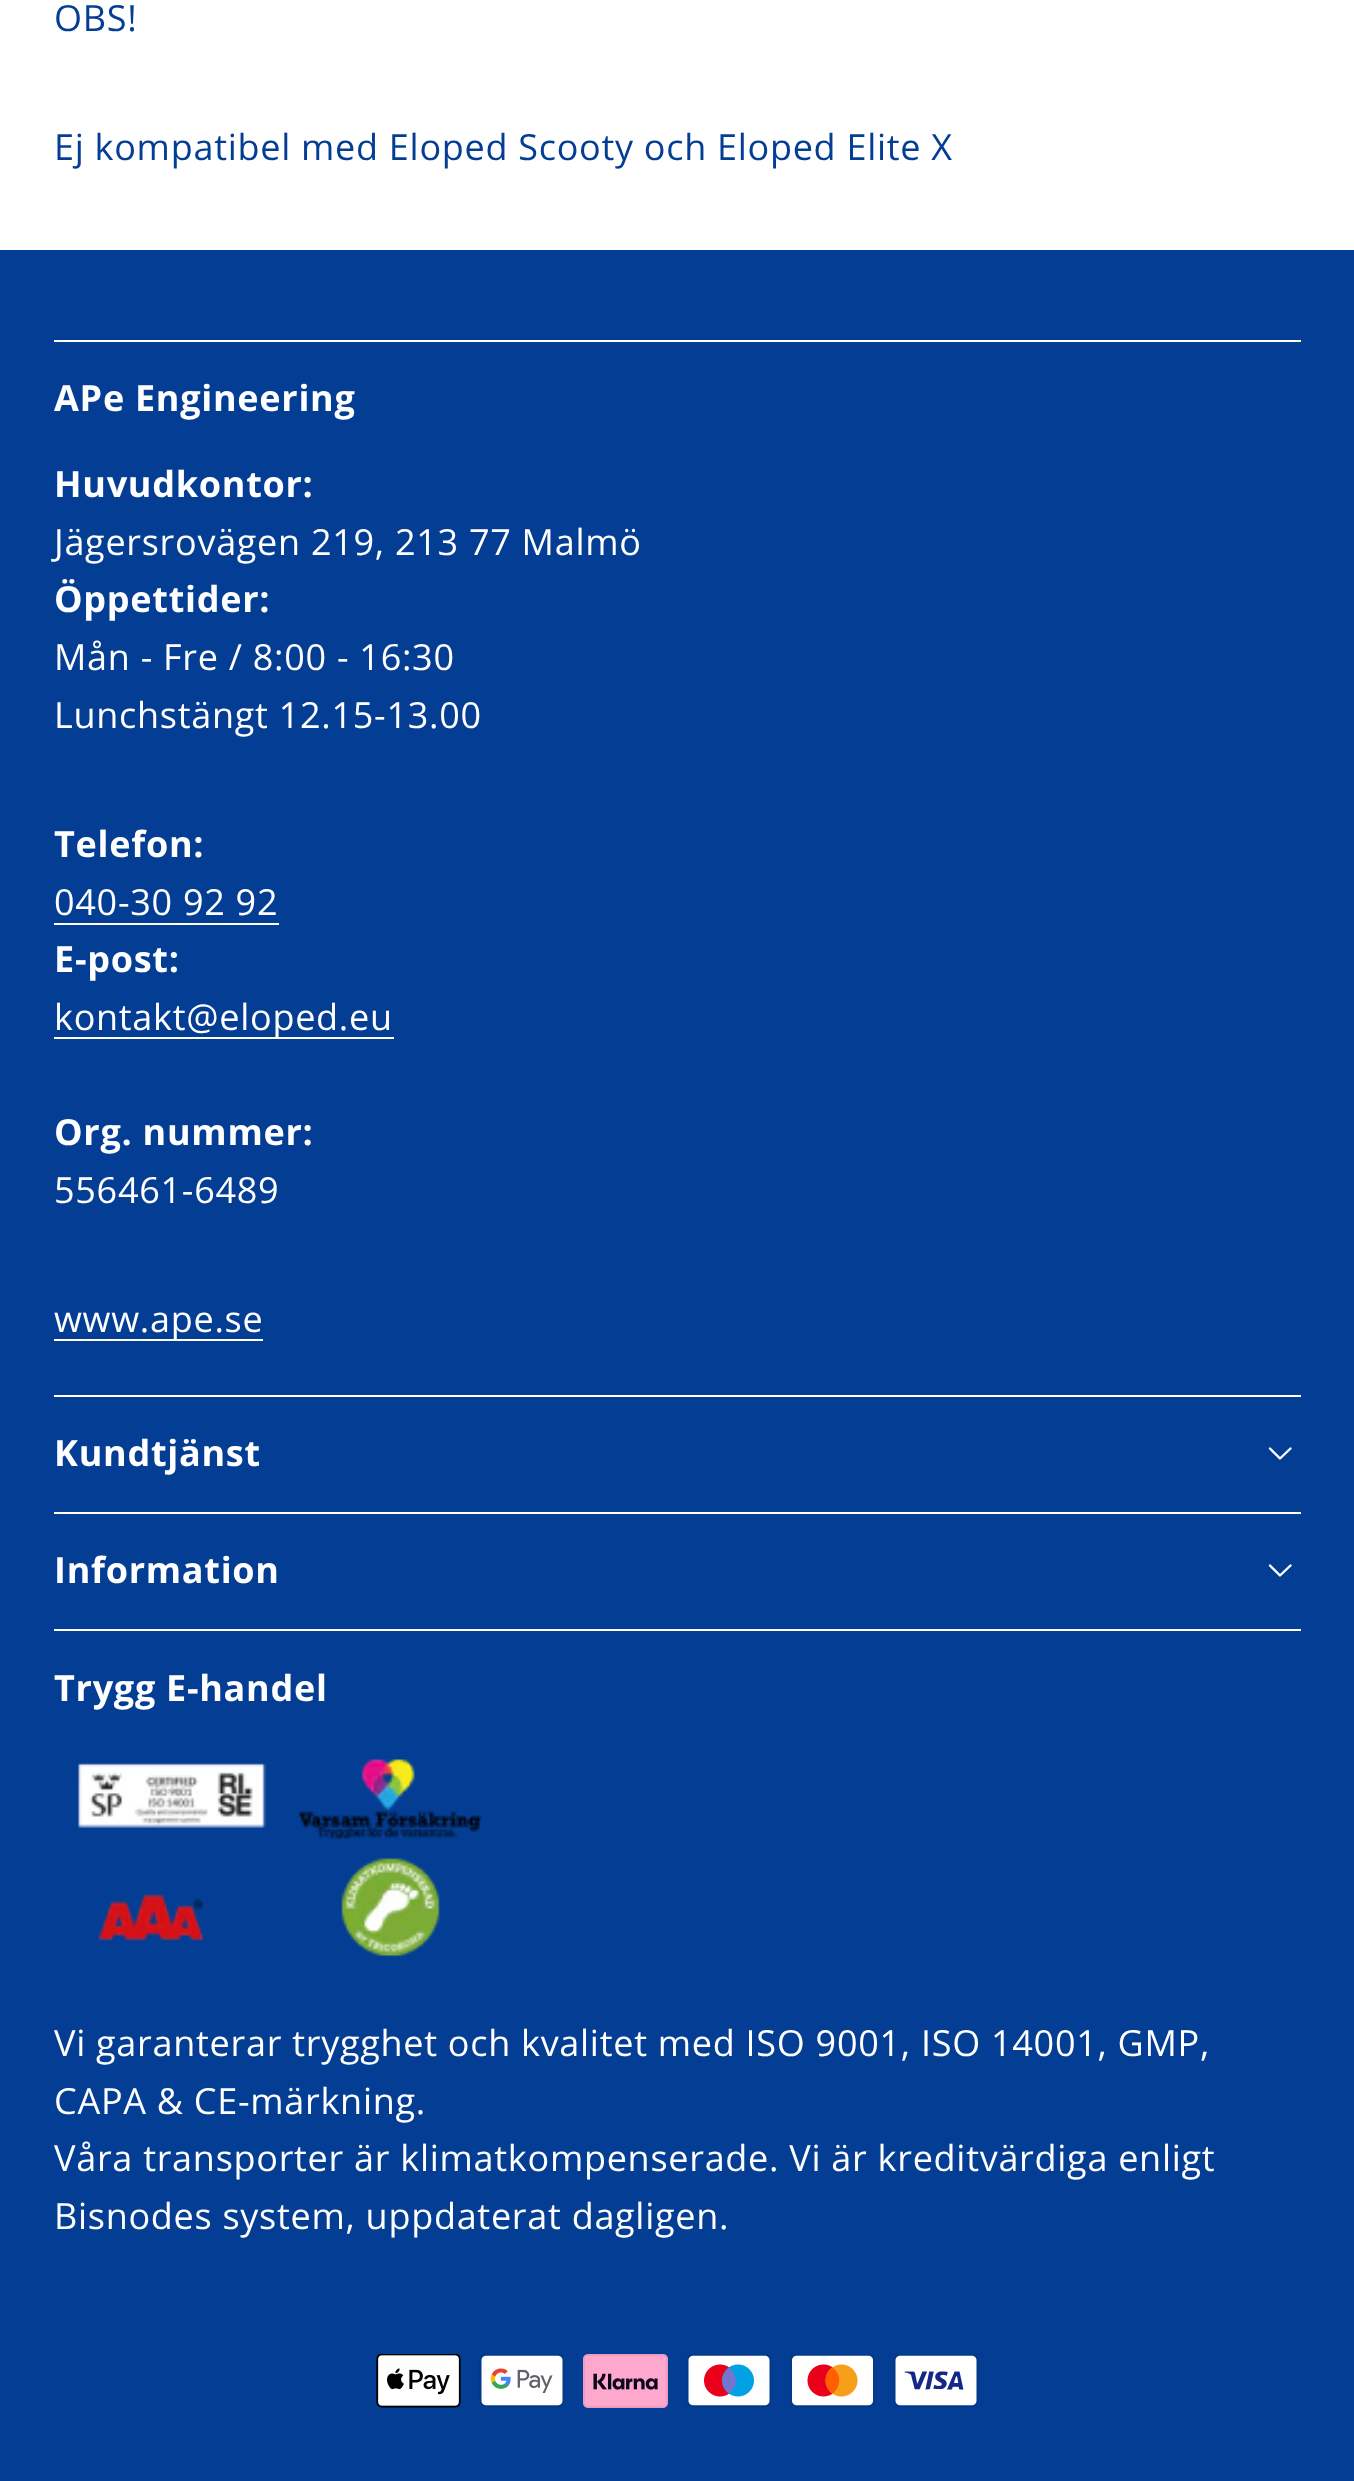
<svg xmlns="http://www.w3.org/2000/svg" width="1354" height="2481">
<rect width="100%" height="100%" fill="#fff"/>
<text x="54" y="31" style="font-family:Open Sans;font-size:36px;letter-spacing:0.72px;fill:#043e94">OBS!</text>
<text x="54" y="160" style="font-family:Open Sans;font-size:36px;letter-spacing:0.72px;fill:#043e94">Ej kompatibel med Eloped Scooty och Eloped Elite X</text>
<rect y="250" width="1354" height="2231" fill="#043e94"/>
<rect x="54" y="340" width="1247" height="2" fill="#fff"/>
<text x="54" y="411" style="font-family:Open Sans;font-size:36px;font-weight:bold;letter-spacing:0.72px;fill:#fff">APe Engineering</text>
<text x="54" y="497" style="font-family:Open Sans;font-size:36px;font-weight:bold;letter-spacing:0.72px;fill:#fff">Huvudkontor:</text>
<text x="54" y="555" style="font-family:Open Sans;font-size:36px;letter-spacing:0.72px;fill:#fff">Jägersrovägen 219, 213 77 Malmö</text>
<text x="54" y="612" style="font-family:Open Sans;font-size:36px;font-weight:bold;letter-spacing:0.72px;fill:#fff">Öppettider:</text>
<text x="54" y="670" style="font-family:Open Sans;font-size:36px;letter-spacing:0.72px;fill:#fff">Mån - Fre / 8:00 - 16:30</text>
<text x="54" y="728" style="font-family:Open Sans;font-size:36px;letter-spacing:0.72px;fill:#fff">Lunchstängt 12.15-13.00</text>
<text x="54" y="857" style="font-family:Open Sans;font-size:36px;font-weight:bold;letter-spacing:0.72px;fill:#fff">Telefon:</text>
<text x="54" y="915" style="font-family:Open Sans;font-size:36px;letter-spacing:0.72px;fill:#fff">040-30 92 92</text>
<rect x="54" y="923" width="225" height="2" fill="#fff"/>
<text x="54" y="972" style="font-family:Open Sans;font-size:36px;font-weight:bold;letter-spacing:0.72px;fill:#fff">E-post:</text>
<rect x="54" y="1037" width="340" height="2" fill="#fff"/>
<text x="54" y="1030" style="font-family:Open Sans;font-size:36px;letter-spacing:0.72px;fill:#fff">kontakt@eloped.eu</text>
<text x="54" y="1145" style="font-family:Open Sans;font-size:36px;font-weight:bold;letter-spacing:0.72px;fill:#fff">Org. nummer:</text>
<text x="54" y="1203" style="font-family:Open Sans;font-size:36px;letter-spacing:0.72px;fill:#fff">556461-6489</text>
<rect x="54" y="1339" width="209" height="2" fill="#fff"/>
<text x="54" y="1332" style="font-family:Open Sans;font-size:36px;letter-spacing:0.72px;fill:#fff">www.ape.se</text>
<rect x="54" y="1395" width="1247" height="2" fill="#fff"/>
<text x="54" y="1466" style="font-family:Open Sans;font-size:36px;font-weight:bold;letter-spacing:0.72px;fill:#fff">Kundtjänst</text>
<path d="M1270 1448.5l10 10l10.5-10" fill="none" stroke="#fff" stroke-width="2.4" stroke-linecap="round" stroke-linejoin="round"/>
<rect x="54" y="1512" width="1247" height="2" fill="#fff"/>
<text x="54" y="1583" style="font-family:Open Sans;font-size:36px;font-weight:bold;letter-spacing:0.72px;fill:#fff">Information</text>
<path d="M1270 1565.5l10 10l10.5-10" fill="none" stroke="#fff" stroke-width="2.4" stroke-linecap="round" stroke-linejoin="round"/>
<rect x="54" y="1629" width="1247" height="2" fill="#fff"/>
<text x="54" y="1701" style="font-family:Open Sans;font-size:36px;font-weight:bold;letter-spacing:0.72px;fill:#fff">Trygg E-handel</text>
<image x="78" y="1759" width="404" height="198" href="media/1.png"/>
<text x="54" y="2056" style="font-family:Open Sans;font-size:36px;letter-spacing:0.72px;fill:#fff">Vi garanterar trygghet och kvalitet med ISO 9001, ISO 14001, GMP,</text>
<text x="54" y="2114" style="font-family:Open Sans;font-size:36px;letter-spacing:0.72px;fill:#fff">CAPA &amp; CE-märkning.</text>
<text x="54" y="2171" style="font-family:Open Sans;font-size:36px;letter-spacing:0.72px;fill:#fff">Våra transporter är klimatkompenserade. Vi är kreditvärdiga enligt</text>
<text x="54" y="2229" style="font-family:Open Sans;font-size:36px;letter-spacing:0.72px;fill:#fff">Bisnodes system, uppdaterat dagligen.</text>
<image x="376" y="2354" width="85" height="54" href="media/2.png"/>
<image x="479" y="2354" width="86" height="54" href="media/3.png"/>
<image x="583" y="2354" width="85" height="54" href="media/4.png"/>
<image x="686" y="2354" width="86" height="54" href="media/5.png"/>
<image x="790" y="2354" width="85" height="54" href="media/6.png"/>
<image x="893" y="2354" width="86" height="54" href="media/7.png"/>
</svg>
